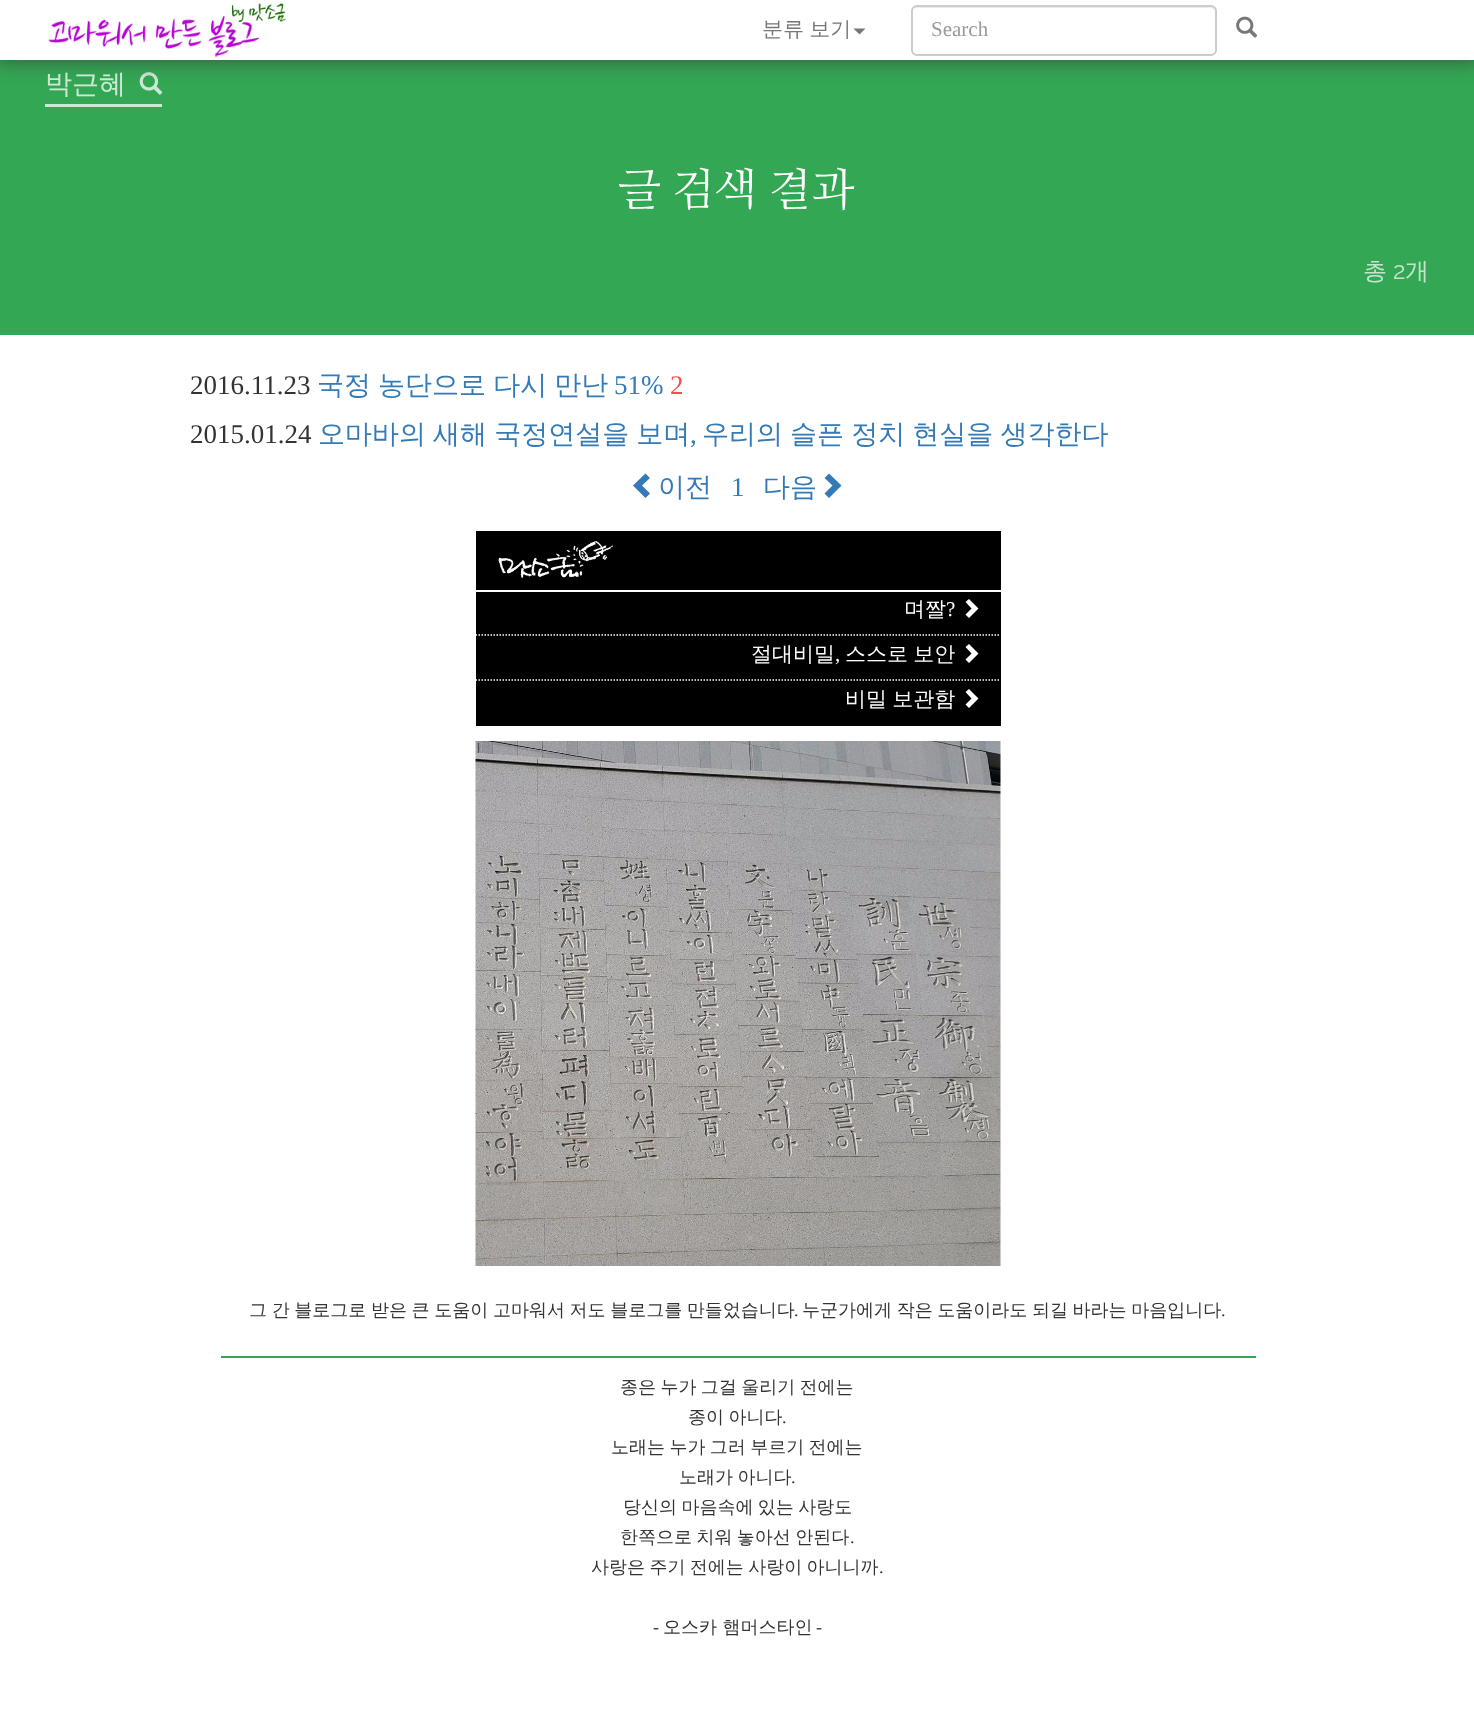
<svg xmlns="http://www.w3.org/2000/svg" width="1474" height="1714">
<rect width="100%" height="100%" fill="#fff"/>
<rect y="60" width="1474" height="275" fill="#33a754"/>
<image x="139" y="72" width="24" height="23" href="media/3.png"/>
<rect x="-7" y="-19" width="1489" height="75" fill="#333" filter="blur(12px)"/>
<rect width="1474" height="60" fill="#fff"/>
<image x="48" y="3" width="238" height="55" href="media/1.png"/>
<text x="762" y="36" word-spacing="-1" style="font-family:WenQuanYi Zen Hei;font-size:21px;font-weight:500;fill:#777">분류 보기</text>
<path d="M853.5 28.5h12l-6 6z" fill="#777"/>
<path d="M916 8h294c3 0 5 2 5 4v-1c0-3-2-5-5-5h-293c-3 0-5 2-5 5v1c0-2 2-4 4-4z" fill="#ececec"/>
<rect x="912" y="6" width="304" height="49" rx="5" fill="none" stroke="#ccc" stroke-width="2"/>
<text x="931" y="36" style="font-family:Liberation Serif;font-size:21px;fill:#999">Search</text>
<image x="1236" y="16" width="22" height="22" href="media/2.png"/>
<rect x="45" y="104" width="117" height="3" fill="#cce9d4"/>
<text x="45" y="93" style="font-family:WenQuanYi Zen Hei;font-size:27px;font-weight:500;fill:#cce9d4">박근혜</text>
<text x="618" y="205" style="font-family:NanumMyeongjo;font-size:45px;fill:#fff">글 검색 결과</text>
<text x="1363" y="279" style="font-family:WenQuanYi Zen Hei;font-size:24px;font-weight:500;fill:#c2e5cc">총</text>
<text x="1393" y="279" style="font-family:Raleway;font-size:24px;font-weight:100;fill:#c2e5cc">2</text>
<text x="1405" y="279" style="font-family:WenQuanYi Zen Hei;font-size:24px;font-weight:500;fill:#c2e5cc">개</text>
<text x="190" y="394" style="font-family:Liberation Serif;font-size:27px;fill:#333">2016.11.23</text>
<text x="317" y="394" word-spacing="-1" style="font-family:WenQuanYi Zen Hei;font-size:27px;font-weight:500;fill:#337ab7">국정 농단으로 다시 만난</text>
<text x="614" y="394" style="font-family:Liberation Serif;font-size:27px;fill:#337ab7">51%</text>
<text x="670" y="394" style="font-family:Liberation Serif;font-size:27px;fill:#ed5150">2</text>
<text x="190" y="443" style="font-family:Liberation Serif;font-size:27px;fill:#333">2015.01.24</text>
<text x="318" y="443" word-spacing="-1" style="font-family:WenQuanYi Zen Hei;font-size:27px;font-weight:500;fill:#337ab7">오마바의 새해 국정연설을 보며</text>
<text x="690" y="443" style="font-family:Liberation Serif;font-size:27px;fill:#337ab7">,</text>
<text x="702" y="443" word-spacing="-1" style="font-family:WenQuanYi Zen Hei;font-size:27px;font-weight:500;fill:#337ab7">우리의 슬픈 정치 현실을 생각한다</text>
<path d="M650 478l-8 7.5l8 8l-4.5 4.5l-12.5-12.5l12.5-12z" fill="#337ab7"/>
<text x="658" y="496" style="font-family:WenQuanYi Zen Hei;font-size:27px;font-weight:500;fill:#337ab7">이전</text>
<text x="731" y="496" style="font-family:Liberation Serif;font-size:27px;fill:#337ab7">1</text>
<text x="763" y="496" style="font-family:WenQuanYi Zen Hei;font-size:27px;font-weight:500;fill:#337ab7">다음</text>
<path d="M841.5 485.5l-12.5 12.5l-4.5-4.5l8-8l-8-7.5l4.5-4.5z" fill="#337ab7"/>
<rect x="476" y="531" width="525" height="195" fill="#000"/>
<rect x="476" y="590" width="525" height="2" fill="#fff"/>
<image x="498" y="541" width="116" height="37" href="media/4.png"/>
<path d="M475.5 635h525" fill="none" stroke="#fff" stroke-width="1.5" stroke-dasharray="1.5 1.5"/>
<text x="904" y="616" style="font-family:WenQuanYi Zen Hei;font-size:21px;font-weight:500;fill:#fff">며짤</text>
<text x="946" y="616" style="font-family:Liberation Serif;font-size:21px;fill:#fff">?</text>
<path d="M978.5 608.5l-9.5 9.5l-3.5-3.5l6-6l-6-6.5l3.5-3z" fill="#fff"/>
<path d="M475.5 680h525" fill="none" stroke="#fff" stroke-width="1.5" stroke-dasharray="1.5 1.5"/>
<text x="751" y="661" style="font-family:WenQuanYi Zen Hei;font-size:21px;font-weight:500;fill:#fff">절대비밀</text>
<text x="835" y="661" style="font-family:Liberation Serif;font-size:21px;fill:#fff">,</text>
<text x="845" y="661" word-spacing="-1" style="font-family:WenQuanYi Zen Hei;font-size:21px;font-weight:500;fill:#fff">스스로 보안</text>
<path d="M978.5 653.5l-9.5 9.5l-3.5-3.5l6-6l-6-6.5l3.5-3z" fill="#fff"/>
<text x="845" y="706" word-spacing="-1" style="font-family:WenQuanYi Zen Hei;font-size:21px;font-weight:500;fill:#fff">비밀 보관함</text>
<path d="M978.5 698.5l-9.5 9.5l-3.5-3.5l6-6l-6-6.5l3.5-3z" fill="#fff"/>
<image x="475" y="741" width="526" height="525" href="media/5.png"/>
<text x="249" y="1316" word-spacing="-0.75" style="font-family:WenQuanYi Zen Hei;font-size:18px;font-weight:500;fill:#333">그 간 블로그로 받은 큰 도움이 고마워서 저도 블로그를 만들었습니다</text>
<text x="794" y="1316" style="font-family:Liberation Serif;font-size:18px;fill:#333">.</text>
<text x="802" y="1316" word-spacing="-0.75" style="font-family:WenQuanYi Zen Hei;font-size:18px;font-weight:500;fill:#333">누군가에게 작은 도움이라도 되길 바라는 마음입니다</text>
<text x="1221" y="1316" style="font-family:Liberation Serif;font-size:18px;fill:#333">.</text>
<rect x="221" y="1356" width="1035" height="2" fill="#33a654"/>
<text x="620" y="1393" word-spacing="-1" style="font-family:WenQuanYi Zen Hei;font-size:18px;font-weight:500;fill:#333">종은 누가 그걸 울리기 전에는</text>
<text x="688" y="1423" word-spacing="-1" style="font-family:WenQuanYi Zen Hei;font-size:18px;font-weight:500;fill:#333">종이 아니다</text>
<text x="782" y="1423" style="font-family:Liberation Serif;font-size:18px;fill:#333">.</text>
<text x="611" y="1453" word-spacing="-1" style="font-family:WenQuanYi Zen Hei;font-size:18px;font-weight:500;fill:#333">노래는 누가 그러 부르기 전에는</text>
<text x="679" y="1483" word-spacing="-1" style="font-family:WenQuanYi Zen Hei;font-size:18px;font-weight:500;fill:#333">노래가 아니다</text>
<text x="791" y="1483" style="font-family:Liberation Serif;font-size:18px;fill:#333">.</text>
<text x="623" y="1513" word-spacing="-1" style="font-family:WenQuanYi Zen Hei;font-size:18px;font-weight:500;fill:#333">당신의 마음속에 있는 사랑도</text>
<text x="620" y="1543" word-spacing="-1" style="font-family:WenQuanYi Zen Hei;font-size:18px;font-weight:500;fill:#333">한쪽으로 치워 놓아선 안된다</text>
<text x="850" y="1543" style="font-family:Liberation Serif;font-size:18px;fill:#333">.</text>
<text x="591" y="1573" word-spacing="-1" style="font-family:WenQuanYi Zen Hei;font-size:18px;font-weight:500;fill:#333">사랑은 주기 전에는 사랑이 아니니까</text>
<text x="879" y="1573" style="font-family:Liberation Serif;font-size:18px;fill:#333">.</text>
<text x="653" y="1633" style="font-family:Liberation Serif;font-size:18px;fill:#333">-</text>
<text x="663" y="1633" style="font-family:WenQuanYi Zen Hei;font-size:18px;font-weight:500;fill:#333">오스카 햄머스타인</text>
<text x="816" y="1633" style="font-family:Liberation Serif;font-size:18px;fill:#333">-</text>
</svg>
